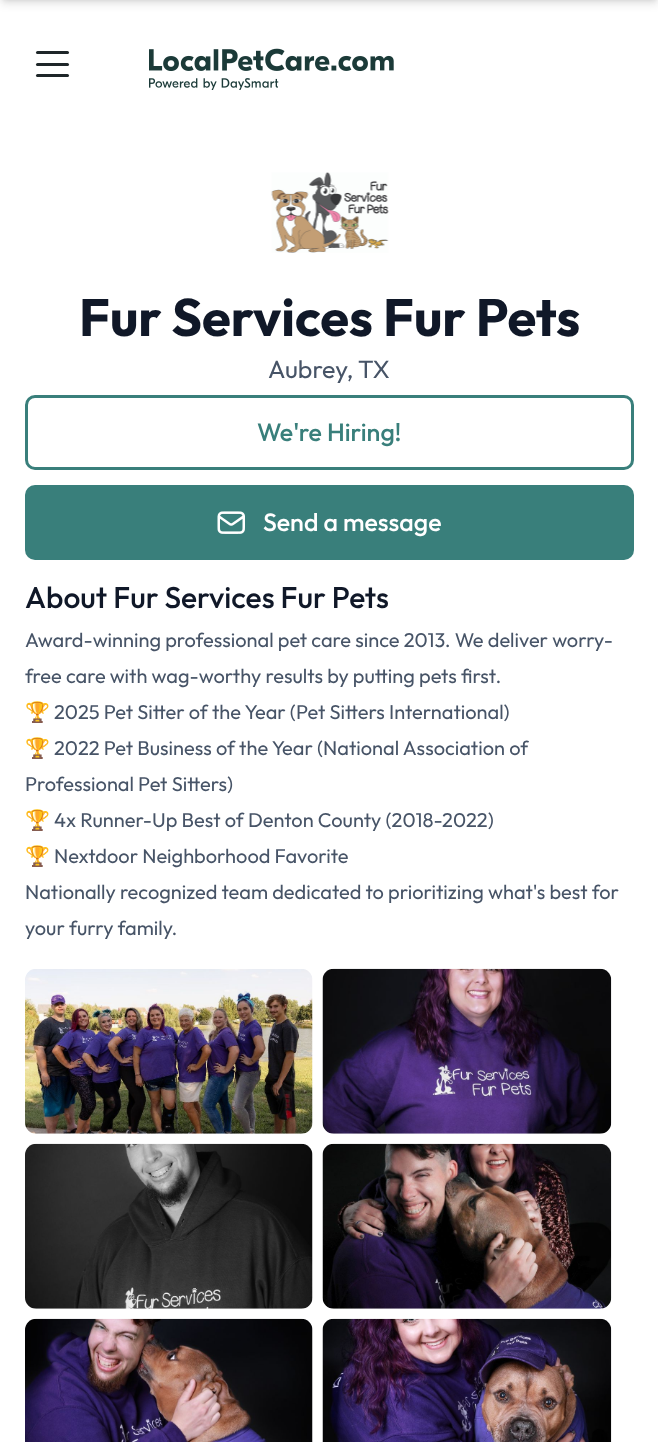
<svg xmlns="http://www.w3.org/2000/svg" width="658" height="1442">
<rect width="100%" height="100%" fill="#fff"/>
<rect x="3" y="-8" width="653" height="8" fill="#0000001a" filter="blur(2.5px)"/>
<rect x="1" y="-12" width="657" height="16" fill="#0000001a" filter="blur(4px)"/>
<rect x="36" y="51" width="33" height="3" rx="1.5" fill="#1e2629"/>
<rect x="36" y="63" width="33" height="3" rx="1.5" fill="#1e2629"/>
<rect x="36" y="74" width="33" height="3" rx="1.5" fill="#1e2629"/>
<image x="149" y="48" width="245" height="42" href="media/1.png"/>
<image x="271" y="172" width="118" height="81" href="media/2.png"/>
<text x="79" y="336" style="font-family:Outfit;font-size:52.5px;font-weight:bold;fill:#101828">Fur Services Fur Pets</text>
<text x="268" y="378" style="font-family:Outfit;font-size:25px;fill:#475467">Aubrey, TX</text>
<rect x="26.5" y="396.5" width="606" height="72" rx="8.5" fill="none" stroke="#397f7b" stroke-width="3"/>
<text x="257" y="441" style="font-family:Outfit;font-size:25px;font-weight:500;fill:#397f7b">We're Hiring!</text>
<rect x="25" y="485" width="609" height="75" rx="10" fill="#397f7b"/>
<image x="217" y="511" width="28" height="23" href="media/3.png"/>
<text x="263" y="531" style="font-family:Outfit;font-size:25px;font-weight:500;fill:#fff">Send a message</text>
<text x="25" y="608" style="font-family:Outfit;font-size:30px;font-weight:500;fill:#101828">About Fur Services Fur Pets</text>
<text x="25" y="647" style="font-family:Outfit;font-size:20px;fill:#475467">Award-winning professional pet care since 2013. We deliver worry-</text>
<text x="25" y="683" style="font-family:Outfit;font-size:20px;fill:#475467">free care with wag-worthy results by putting pets first.</text>
<text x="25" y="719" style="font-family:Noto Color Emoji;font-size:20px;fill:#475467">🏆</text>
<text x="54" y="719" style="font-family:Outfit;font-size:20px;fill:#475467">2025 Pet Sitter of the Year (Pet Sitters International)</text>
<text x="25" y="755" style="font-family:Noto Color Emoji;font-size:20px;fill:#475467">🏆</text>
<text x="54" y="755" style="font-family:Outfit;font-size:20px;fill:#475467">2022 Pet Business of the Year (National Association of</text>
<text x="25" y="791" style="font-family:Outfit;font-size:20px;fill:#475467">Professional Pet Sitters)</text>
<text x="25" y="827" style="font-family:Noto Color Emoji;font-size:20px;fill:#475467">🏆</text>
<text x="54" y="827" style="font-family:Outfit;font-size:20px;fill:#475467">4x Runner-Up Best of Denton County (2018-2022)</text>
<text x="25" y="863" style="font-family:Noto Color Emoji;font-size:20px;fill:#475467">🏆</text>
<text x="54" y="863" style="font-family:Outfit;font-size:20px;fill:#475467">Nextdoor Neighborhood Favorite</text>
<text x="25" y="899" style="font-family:Outfit;font-size:20px;fill:#475467">Nationally recognized team dedicated to prioritizing what's best for</text>
<text x="25" y="935" style="font-family:Outfit;font-size:20px;fill:#475467">your furry family.</text>
<image x="25" y="969" width="288" height="165" href="media/4.png"/>
<image x="322" y="968" width="290" height="166" href="media/5.png"/>
<image x="25" y="1143" width="288" height="166" href="media/6.png"/>
<image x="322" y="1143" width="290" height="166" href="media/7.png"/>
<image x="25" y="1318" width="288" height="124" href="media/8.png"/>
<image x="322" y="1318" width="290" height="124" href="media/9.png"/>
</svg>
